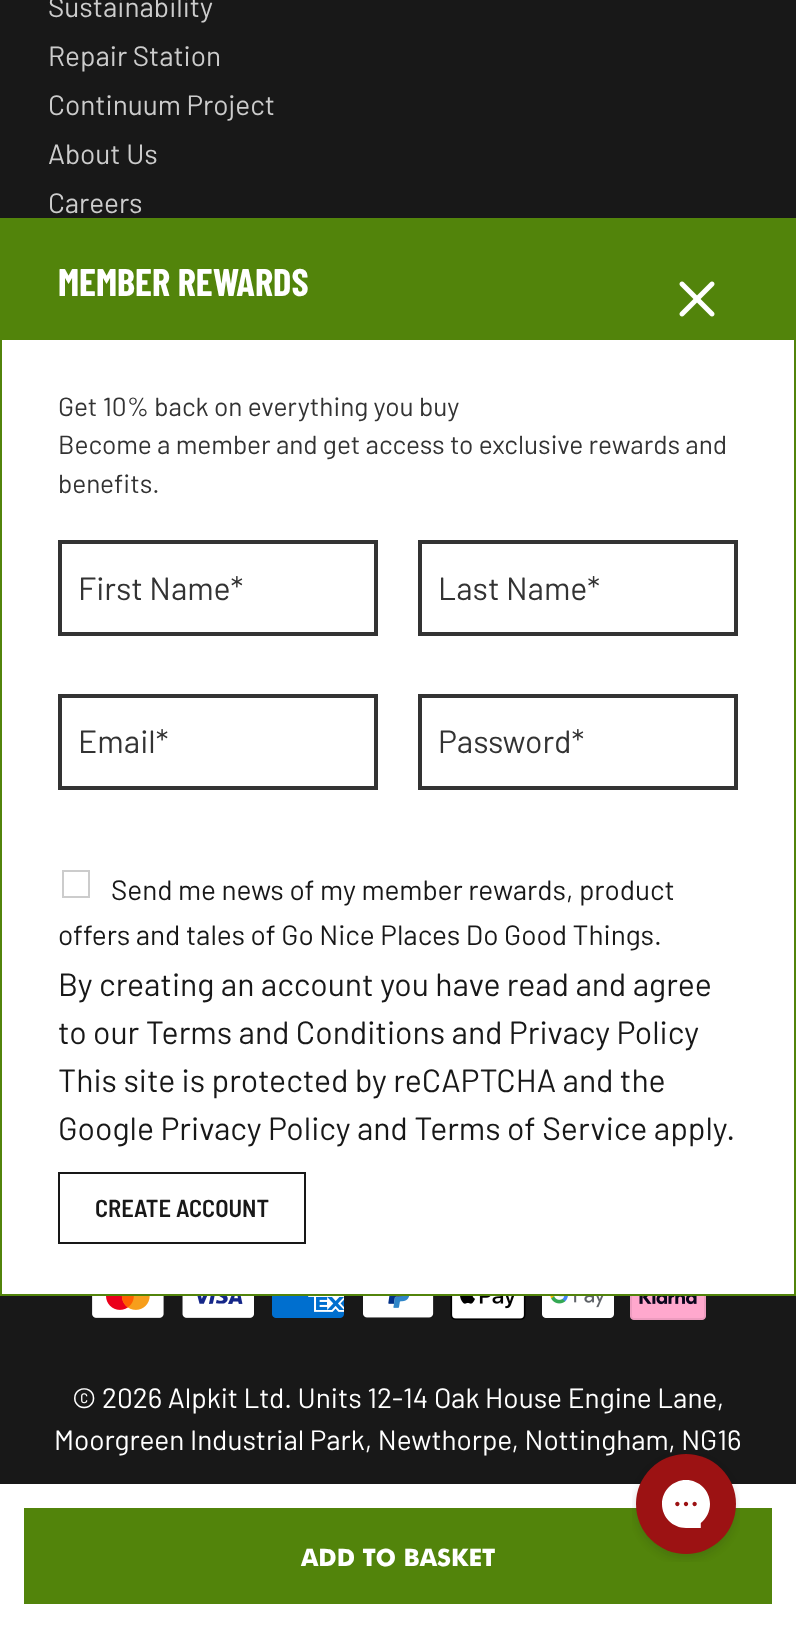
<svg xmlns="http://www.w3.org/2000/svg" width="796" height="1628">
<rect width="100%" height="100%" fill="#181818"/>
<text x="48" y="17" style="font-family:Barlow;font-size:28px;fill:#ccc">Sustainability</text>
<text x="48" y="66" style="font-family:Barlow;font-size:28px;fill:#ccc">Repair Station</text>
<text x="48" y="115" style="font-family:Barlow;font-size:28px;fill:#ccc">Continuum Project</text>
<text x="48" y="164" style="font-family:Barlow;font-size:28px;fill:#ccc">About Us</text>
<text x="48" y="213" style="font-family:Barlow;font-size:28px;fill:#ccc">Careers</text>
<image x="92" y="1296" width="72" height="22" href="media/1.png"/>
<image x="182" y="1296" width="72" height="22" href="media/2.png"/>
<image x="272" y="1296" width="72" height="22" href="media/3.png"/>
<image x="363" y="1296" width="71" height="22" href="media/4.png"/>
<image x="450" y="1296" width="76" height="24" href="media/5.png"/>
<image x="542" y="1296" width="72" height="22" href="media/6.png"/>
<image x="630" y="1296" width="76" height="24" href="media/7.png"/>
<text x="72" y="1408" style="font-family:Barlow;font-size:28px;fill:#fff">© 2026 Alpkit Ltd. Units 12-14 Oak House Engine Lane,</text>
<text x="54" y="1450" style="font-family:Barlow;font-size:28px;fill:#fff">Moorgreen Industrial Park, Newthorpe, Nottingham, NG16</text>
<rect x="2" y="340" width="792" height="954" fill="#fff"/>
<rect x="1" y="219" width="794" height="1076" fill="none" stroke="#52840b" stroke-width="2"/>
<rect x="2" y="220" width="792" height="120" fill="#52840b"/>
<text x="58" y="296" style="font-family:Barlow Condensed;font-size:38.5px;font-weight:bold;fill:#fff">MEMBER REWARDS</text>
<image x="679" y="281" width="36" height="36" href="media/8.png"/>
<text x="58" y="416" style="font-family:Barlow;font-size:26.25px;fill:#333">Get 10% back on everything you buy</text>
<text x="58" y="454" style="font-family:Barlow;font-size:26.25px;fill:#333">Become a member and get access to exclusive rewards and</text>
<text x="58" y="493" style="font-family:Barlow;font-size:26.25px;fill:#333">benefits.</text>
<rect x="60" y="542" width="316" height="92" fill="none" stroke="#333" stroke-width="4"/>
<text x="78" y="600" style="font-family:Barlow;font-size:32px;fill:#333">First Name*</text>
<rect x="420" y="542" width="316" height="92" fill="none" stroke="#333" stroke-width="4"/>
<text x="438" y="600" style="font-family:Barlow;font-size:32px;fill:#333">Last Name*</text>
<rect x="60" y="696" width="316" height="92" fill="none" stroke="#333" stroke-width="4"/>
<text x="78" y="753" style="font-family:Barlow;font-size:32px;fill:#333">Email*</text>
<rect x="420" y="696" width="316" height="92" fill="none" stroke="#333" stroke-width="4"/>
<text x="438" y="753" style="font-family:Barlow;font-size:32px;fill:#333">Password*</text>
<rect x="63" y="871" width="26" height="26" fill="none" stroke="#ccc" stroke-width="2"/>
<text x="111" y="900" style="font-family:Barlow;font-size:28px;fill:#181818">Send me news of my member rewards, product</text>
<text x="58" y="945" style="font-family:Barlow;font-size:28px;fill:#181818">offers and tales of Go Nice Places Do Good Things.</text>
<text x="58" y="996" style="font-family:Barlow;font-size:32px;fill:#181818">By creating an account you have read and agree</text>
<text x="58" y="1044" style="font-family:Barlow;font-size:32px;fill:#181818">to our Terms and Conditions and Privacy Policy</text>
<text x="58" y="1092" style="font-family:Barlow;font-size:32px;fill:#181818">This site is protected by reCAPTCHA and the</text>
<text x="58" y="1140" style="font-family:Barlow;font-size:32px;fill:#181818">Google Privacy Policy and Terms of Service apply.</text>
<rect x="59" y="1173" width="246" height="70" fill="none" stroke="#181818" stroke-width="2"/>
<text x="95" y="1217" style="font-family:Barlow Semi Condensed;font-size:24.5px;font-weight:600;fill:#181818">CREATE ACCOUNT</text>
<rect y="1484" width="796" height="144" fill="#fff"/>
<rect x="24" y="1508" width="748" height="96" fill="#52840b"/>
<text x="301" y="1566" style="font-family:'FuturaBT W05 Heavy';font-size:24px;font-weight:900;fill:#fff">ADD TO BASKET</text>
<image x="632" y="1454" width="108" height="108" href="media/9.png"/>
</svg>
